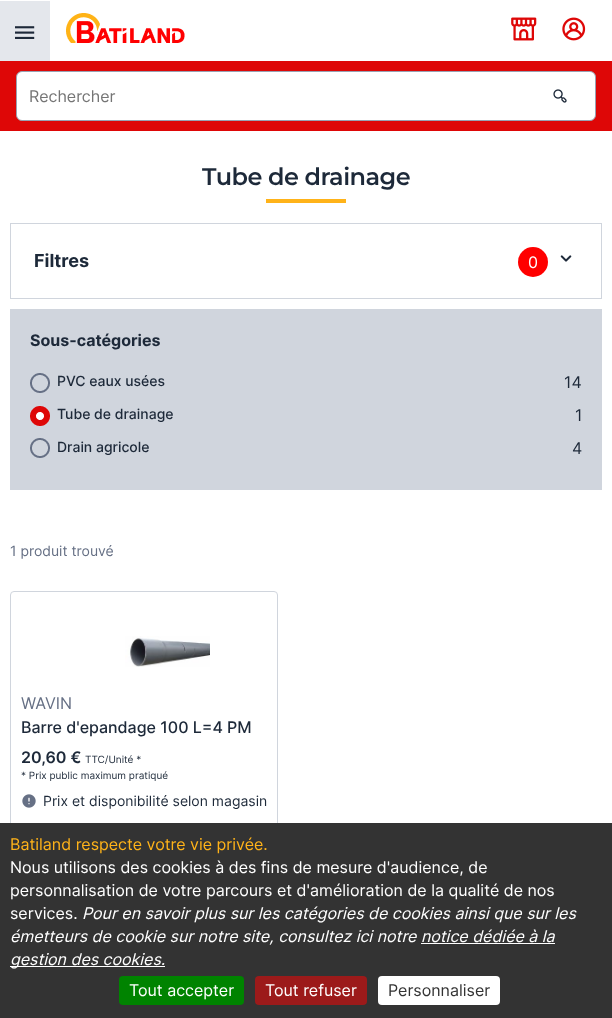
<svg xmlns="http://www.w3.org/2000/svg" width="612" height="1018">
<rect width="100%" height="100%" fill="#fff"/>
<rect y="1" width="50" height="60" fill="#e4e7ec"/>
<image x="15" y="26" width="20" height="13" href="media/1.png"/>
<image x="66" y="13" width="119" height="30" href="media/2.png"/>
<image x="511" y="17" width="26" height="24" href="media/3.png"/>
<image x="562" y="17" width="24" height="24" href="media/4.png"/>
<rect y="61" width="612" height="70" fill="#de0707"/>
<rect x="16.5" y="71.5" width="579" height="49" rx="5.5" fill="#fff" stroke="#98a2b3"/>
<text x="29" y="102" style="font-family:Inter;font-size:16px;fill:#757575">Rechercher</text>
<image x="553" y="89" width="14" height="14" href="media/5.png"/>
<text x="202" y="185" style="font-family:Montserrat;font-size:24px;font-weight:100;letter-spacing:-0.5px;fill:#1d2939">Tube de drainage</text>
<rect x="266" y="199" width="80" height="4" fill="#ffb319"/>
<rect x="10.5" y="223.5" width="591" height="75" fill="none" stroke="#d0d5dd"/>
<text x="34" y="267" style="font-family:Inter;font-size:18px;font-weight:bold;fill:#1d2939">Filtres</text>
<circle cx="533" cy="262" r="15" fill="#f00"/>
<text x="528" y="268" style="font-family:Inter;font-size:16px;fill:#fff">0</text>
<image x="560" y="255" width="12" height="7" href="media/6.png"/>
<rect x="10" y="309" width="592" height="181" fill="#d0d5dd"/>
<text x="30" y="346" style="font-family:Inter;font-size:16px;font-weight:bold;fill:#1d2939">Sous-catégories</text>
<image x="30" y="373" width="20" height="20" href="media/7.png"/>
<text x="57" y="386" style="font-family:Inter;font-size:14px;font-weight:500;fill:#1d2939">PVC eaux usées</text>
<text x="564" y="388" style="font-family:Inter;font-size:16px;fill:#1d2939">14</text>
<image x="30" y="406" width="20" height="20" href="media/8.png"/>
<text x="57" y="419" style="font-family:Inter;font-size:14px;font-weight:500;fill:#1d2939">Tube de drainage</text>
<text x="575" y="421" style="font-family:Inter;font-size:16px;fill:#1d2939">1</text>
<image x="30" y="438" width="20" height="20" href="media/7.png"/>
<text x="57" y="452" style="font-family:Inter;font-size:14px;font-weight:500;fill:#1d2939">Drain agricole</text>
<text x="572" y="454" style="font-family:Inter;font-size:16px;fill:#1d2939">4</text>
<text x="10" y="556" style="font-family:Inter;font-size:14px;fill:#667085">1 produit trouvé</text>
<rect x="10.5" y="591.5" width="267" height="270" rx="3.5" fill="none" stroke="#d0d5dd"/>
<image x="125" y="636" width="85" height="31" href="media/9.png"/>
<text x="21" y="709" style="font-family:Inter;font-size:16px;fill:#667085">WAVIN</text>
<text x="21" y="733" style="font-family:Inter;font-size:16px;font-weight:500;fill:#1d2939">Barre d'epandage 100 L=4 PM</text>
<text x="21" y="763" style="font-family:Inter;font-size:16px;font-weight:600;fill:#1d2939">20,60 €</text>
<text x="85" y="763" style="font-family:Inter;font-size:10px;fill:#1d2939">TTC/Unité *</text>
<text x="21" y="779" style="font-family:Inter;font-size:10px;fill:#1d2939">* Prix public maximum pratiqué</text>
<image x="22" y="794" width="14" height="14" href="media/10.png"/>
<text x="43" y="806" style="font-family:Inter;font-size:14px;fill:#1d2939">Prix et disponibilité selon magasin</text>
<rect y="823" width="612" height="195" fill="#333"/>
<text x="10" y="850" style="font-family:Inter;font-size:16px;fill:#ffb319">Batiland respecte votre vie privée.</text>
<text x="10" y="873" style="font-family:Inter;font-size:16px;fill:#fff">Nous utilisons des cookies à des fins de mesure d'audience, de</text>
<text x="10" y="896" style="font-family:Inter;font-size:16px;fill:#fff">personnalisation de votre parcours et d'amélioration de la qualité de nos</text>
<text x="10" y="919" style="font-family:Inter;font-size:16px;fill:#fff">services.</text>
<text x="82" y="919" style="font-family:Inter;font-size:16px;font-style:italic;fill:#fff">Pour en savoir plus sur les catégories de cookies ainsi que sur les</text>
<text x="10" y="942" style="font-family:Inter;font-size:16px;font-style:italic;fill:#fff">émetteurs de cookie sur notre site, consultez ici notre notice dédiée à la</text>
<rect x="421" y="943" width="134" height="1" fill="#fff"/>
<rect x="10" y="966" width="155" height="1" fill="#fff"/>
<text x="10" y="965" style="font-family:Inter;font-size:16px;font-style:italic;fill:#fff">gestion des cookies.</text>
<rect x="119" y="976" width="125" height="29" rx="4" fill="#008300"/>
<text x="129" y="996" style="font-family:Inter;font-size:16px;fill:#fff">Tout accepter</text>
<rect x="255" y="976" width="112" height="29" rx="4" fill="#9c1a1a"/>
<text x="265" y="996" style="font-family:Inter;font-size:16px;fill:#fff">Tout refuser</text>
<rect x="378" y="976" width="122" height="29" rx="4" fill="#fff"/>
<text x="388" y="996" style="font-family:Inter;font-size:16px;fill:#333">Personnaliser</text>
</svg>
